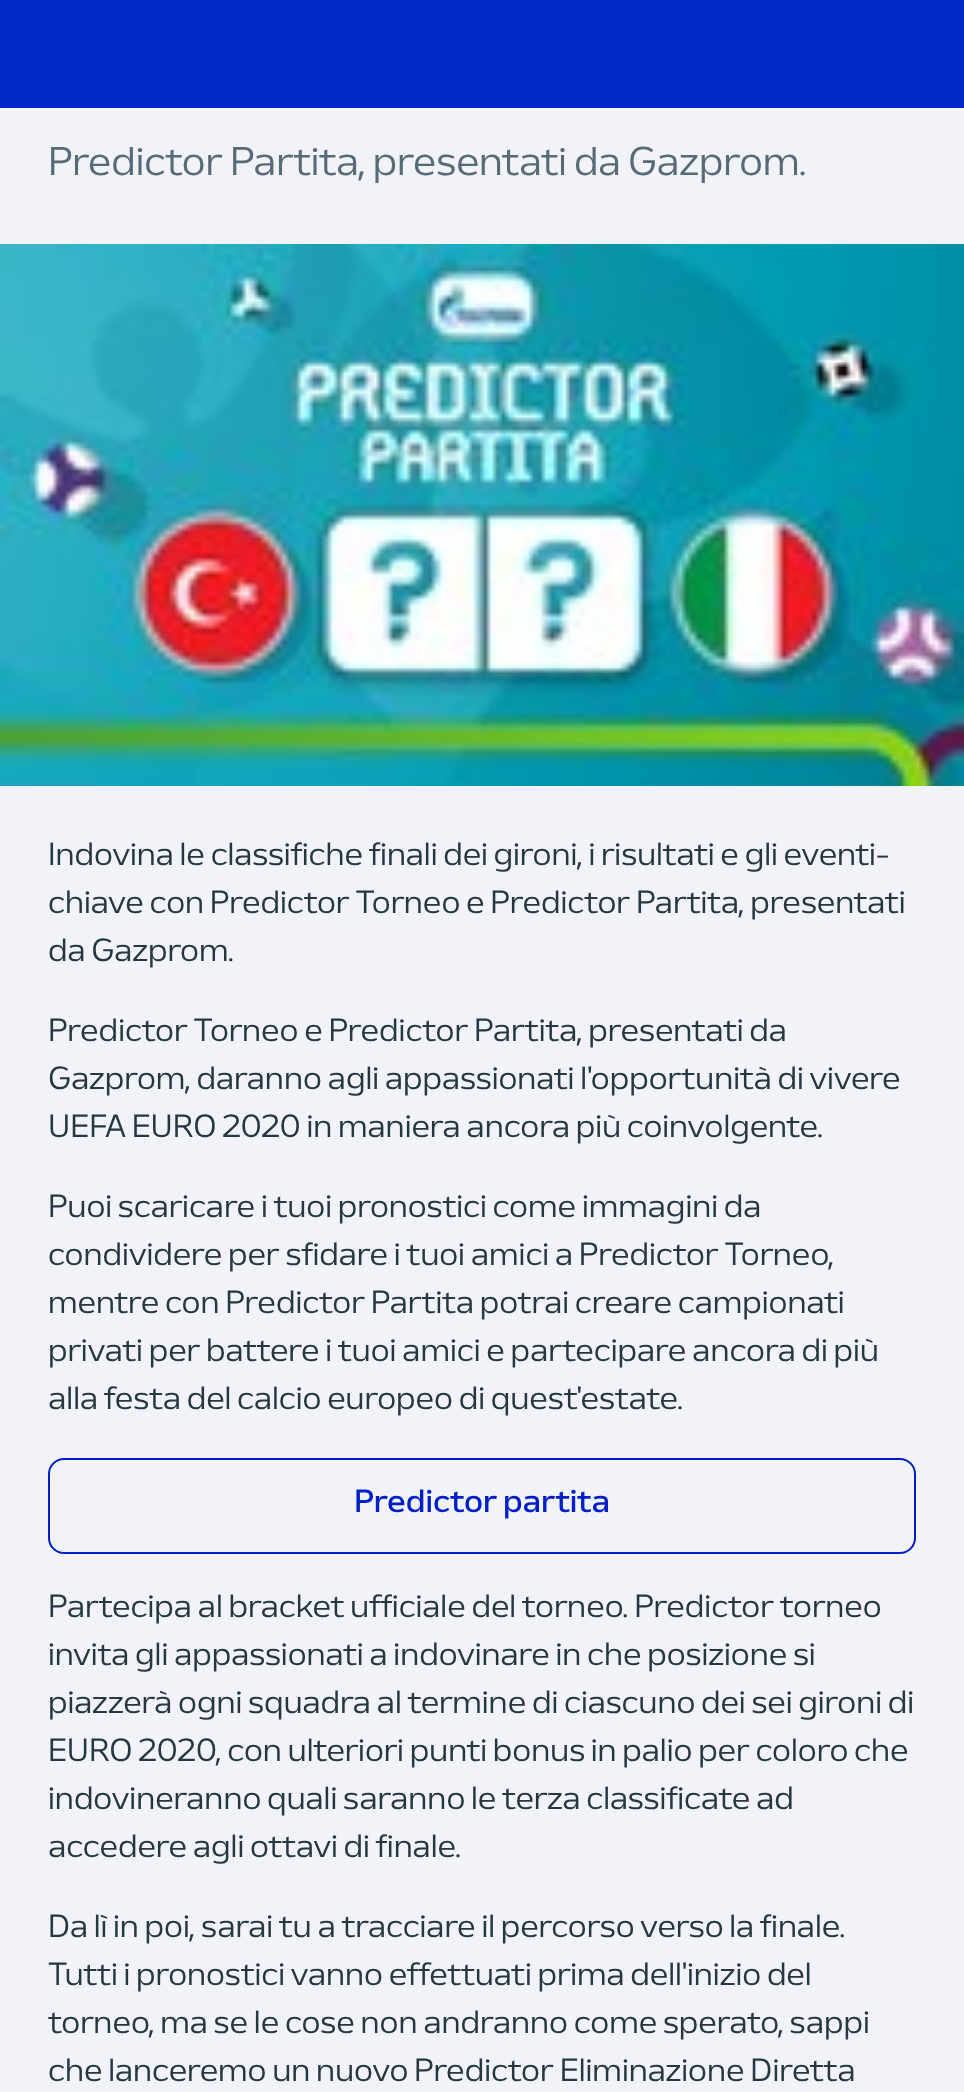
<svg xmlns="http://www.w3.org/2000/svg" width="964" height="2092">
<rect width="100%" height="100%" fill="#f1f3f8"/>
<rect width="964" height="108" fill="#0029c5"/>
<text x="48" y="175" style="font-family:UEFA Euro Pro;font-size:40px;fill:#576a77">Predictor Partita, presentati da Gazprom.</text>
<image x="0" y="244" width="964" height="542" href="media/1.png"/>
<text x="48" y="865" style="font-family:UEFA Euro Pro;font-size:32px;fill:#253740">Indovina le classifiche finali dei gironi, i risultati e gli eventi-</text>
<text x="48" y="913" style="font-family:UEFA Euro Pro;font-size:32px;fill:#253740">chiave con Predictor Torneo e Predictor Partita, presentati</text>
<text x="48" y="961" style="font-family:UEFA Euro Pro;font-size:32px;fill:#253740">da Gazprom.</text>
<text x="48" y="1041" style="font-family:UEFA Euro Pro;font-size:32px;fill:#253740">Predictor Torneo e Predictor Partita, presentati da</text>
<text x="48" y="1089" style="font-family:UEFA Euro Pro;font-size:32px;fill:#253740">Gazprom, daranno agli appassionati l'opportunità di vivere</text>
<text x="48" y="1137" style="font-family:UEFA Euro Pro;font-size:32px;fill:#253740">UEFA EURO 2020 in maniera ancora più coinvolgente.</text>
<text x="48" y="1217" style="font-family:UEFA Euro Pro;font-size:32px;fill:#253740">Puoi scaricare i tuoi pronostici come immagini da</text>
<text x="48" y="1265" style="font-family:UEFA Euro Pro;font-size:32px;fill:#253740">condividere per sfidare i tuoi amici a Predictor Torneo,</text>
<text x="48" y="1313" style="font-family:UEFA Euro Pro;font-size:32px;fill:#253740">mentre con Predictor Partita potrai creare campionati</text>
<text x="48" y="1361" style="font-family:UEFA Euro Pro;font-size:32px;fill:#253740">privati per battere i tuoi amici e partecipare ancora di più</text>
<text x="48" y="1409" style="font-family:UEFA Euro Pro;font-size:32px;fill:#253740">alla festa del calcio europeo di quest'estate.</text>
<rect x="49" y="1459" width="866" height="94" rx="15" fill="none" stroke="#001ec8" stroke-width="2"/>
<text x="354" y="1512" style="font-family:UEFA Euro Pro;font-size:32px;font-weight:500;fill:#001ec8">Predictor partita</text>
<text x="48" y="1617" style="font-family:UEFA Euro Pro;font-size:32px;fill:#253740">Partecipa al bracket ufficiale del torneo. Predictor torneo</text>
<text x="48" y="1665" style="font-family:UEFA Euro Pro;font-size:32px;fill:#253740">invita gli appassionati a indovinare in che posizione si</text>
<text x="48" y="1713" style="font-family:UEFA Euro Pro;font-size:32px;fill:#253740">piazzerà ogni squadra al termine di ciascuno dei sei gironi di</text>
<text x="48" y="1761" style="font-family:UEFA Euro Pro;font-size:32px;fill:#253740">EURO 2020, con ulteriori punti bonus in palio per coloro che</text>
<text x="48" y="1809" style="font-family:UEFA Euro Pro;font-size:32px;fill:#253740">indovineranno quali saranno le terza classificate ad</text>
<text x="48" y="1857" style="font-family:UEFA Euro Pro;font-size:32px;fill:#253740">accedere agli ottavi di finale.</text>
<text x="48" y="1937" style="font-family:UEFA Euro Pro;font-size:32px;fill:#253740">Da lì in poi, sarai tu a tracciare il percorso verso la finale.</text>
<text x="48" y="1985" style="font-family:UEFA Euro Pro;font-size:32px;fill:#253740">Tutti i pronostici vanno effettuati prima dell'inizio del</text>
<text x="48" y="2033" style="font-family:UEFA Euro Pro;font-size:32px;fill:#253740">torneo, ma se le cose non andranno come sperato, sappi</text>
<text x="48" y="2081" style="font-family:UEFA Euro Pro;font-size:32px;fill:#253740">che lanceremo un nuovo Predictor Eliminazione Diretta</text>
</svg>
